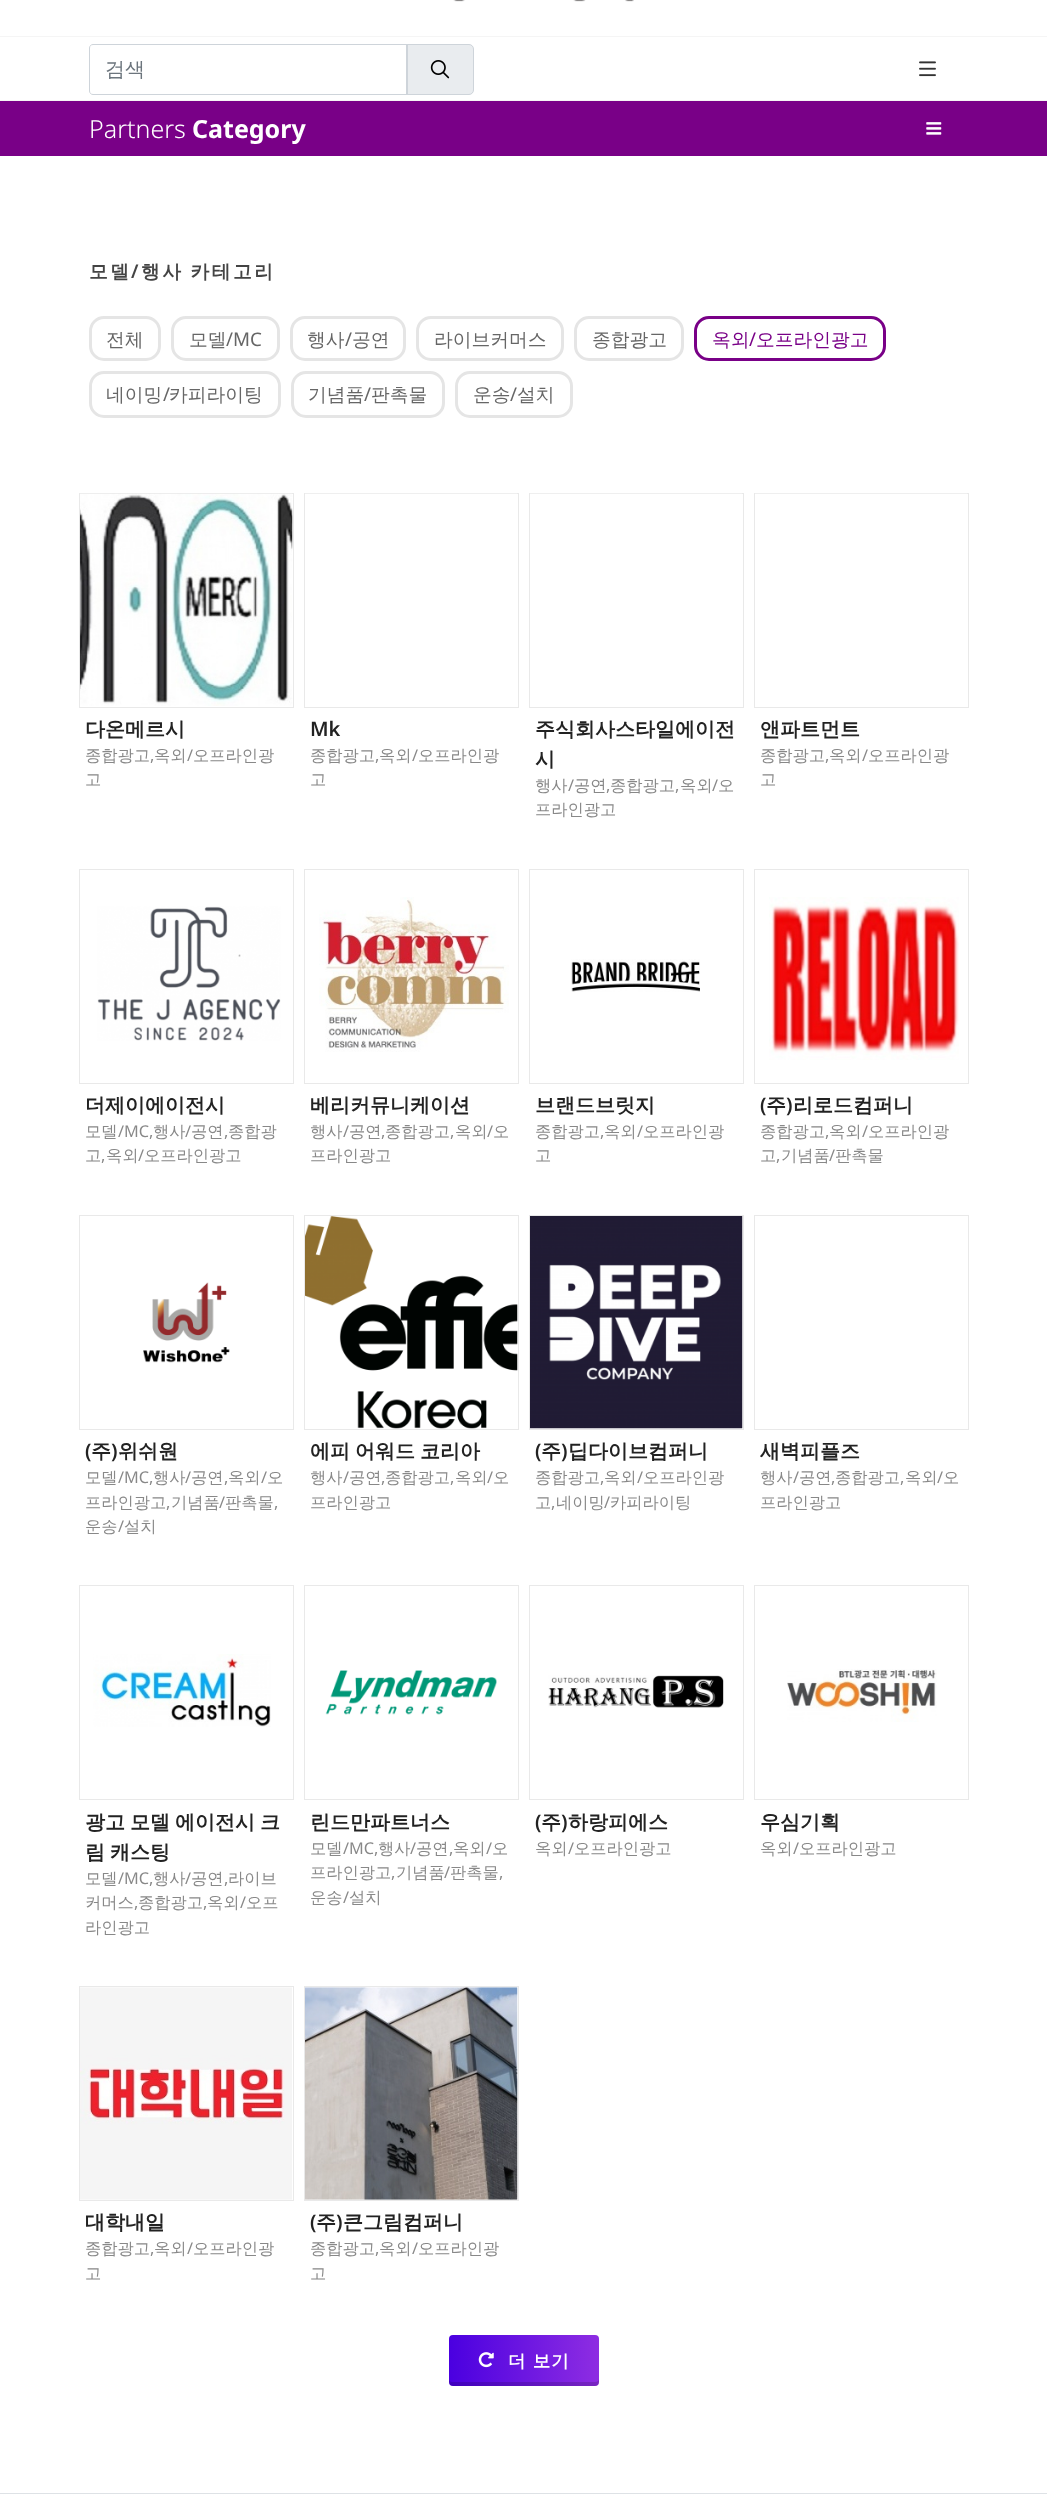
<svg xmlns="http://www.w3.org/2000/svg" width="1047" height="2518">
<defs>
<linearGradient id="g1" gradientUnits="userSpaceOnUse" x1="449" y1="2361" x2="599" y2="2361"><stop offset="0" stop-color="#4a00e0"/><stop offset="1" stop-color="#8e2de2"/></linearGradient>
</defs>
<rect width="100%" height="100%" fill="#fff"/>
<rect y="100" width="1047" height="1" fill="#f5f5f5"/>
<image x="453" y="0" width="181" height="2" href="media/1.png"/>
<rect y="36" width="1047" height="1" fill="#f5f5f5"/>
<path d="M406.5 44.5h62.5c2.5 0 4.5 2 4.5 4.5v41c0 2.5-2 4.5-4.5 4.5h-62.5z" fill="#e9ecef" stroke="#ced4da"/>
<path d="M93 44.5h314.5v50h-314.5c-2 0-3.5-1.5-3.5-3.5v-43c0-2 1.5-3.5 3.5-3.5z" fill="none" stroke="#ced4da"/>
<text x="105" y="76" style="font-family:WenQuanYi Zen Hei;font-size:20px;font-weight:500;fill:#6c757d">검색</text>
<image x="430" y="60" width="20" height="19" href="media/2.png"/>
<image x="919" y="61" width="17" height="16" href="media/3.png"/>
<rect y="101" width="1047" height="55" fill="#790087"/>
<text x="89" y="138" style="font-family:Noto Sans;font-size:25px;font-weight:300;fill:#fff">Partners</text>
<text x="192" y="138" style="font-family:Noto Sans;font-size:25px;font-weight:bold;fill:#fff">Category</text>
<image x="926" y="122" width="16" height="13" href="media/4.png"/>
<text x="89" y="278" style="font-family:WenQuanYi Zen Hei;font-size:18.75px;font-weight:bold;letter-spacing:2.5px;fill:#444">모델</text>
<text x="131" y="278" style="font-family:Noto Sans;font-size:18.75px;font-weight:600;letter-spacing:2.5px;fill:#444">/</text>
<text x="141" y="278" word-spacing="-1" style="font-family:WenQuanYi Zen Hei;font-size:18.75px;font-weight:bold;letter-spacing:2.5px;fill:#444">행사 카테고리</text>
<rect x="90.5" y="317.5" width="69" height="42" rx="13.5" fill="none" stroke="#e5e5e5" stroke-width="3"/>
<text x="106" y="346" style="font-family:WenQuanYi Zen Hei;font-size:18.75px;font-weight:500;fill:#666">전체</text>
<rect x="172.5" y="317.5" width="106" height="42" rx="13.5" fill="none" stroke="#e5e5e5" stroke-width="3"/>
<text x="189" y="346" style="font-family:WenQuanYi Zen Hei;font-size:18.75px;font-weight:500;fill:#666">모델</text>
<text x="226" y="346" style="font-family:Noto Sans;font-size:18.75px;fill:#666">/MC</text>
<rect x="291.5" y="317.5" width="113" height="42" rx="13.5" fill="none" stroke="#e5e5e5" stroke-width="3"/>
<text x="307" y="346" style="font-family:WenQuanYi Zen Hei;font-size:18.75px;font-weight:500;fill:#666">행사</text>
<text x="345" y="346" style="font-family:Noto Sans;font-size:18.75px;fill:#666">/</text>
<text x="352" y="346" style="font-family:WenQuanYi Zen Hei;font-size:18.75px;font-weight:500;fill:#666">공연</text>
<rect x="417.5" y="317.5" width="145" height="42" rx="13.5" fill="none" stroke="#e5e5e5" stroke-width="3"/>
<text x="434" y="346" style="font-family:WenQuanYi Zen Hei;font-size:18.75px;font-weight:500;fill:#666">라이브커머스</text>
<rect x="575.5" y="317.5" width="107" height="42" rx="13.5" fill="none" stroke="#e5e5e5" stroke-width="3"/>
<text x="592" y="346" style="font-family:WenQuanYi Zen Hei;font-size:18.75px;font-weight:500;fill:#666">종합광고</text>
<rect x="695.5" y="317.5" width="189" height="42" rx="13.5" fill="none" stroke="#790087" stroke-width="3"/>
<text x="712" y="346" style="font-family:WenQuanYi Zen Hei;font-size:18.75px;font-weight:500;fill:#790087">옥외</text>
<text x="749" y="346" style="font-family:Noto Sans;font-size:18.75px;fill:#790087">/</text>
<text x="756" y="346" style="font-family:WenQuanYi Zen Hei;font-size:18.75px;font-weight:500;fill:#790087">오프라인광고</text>
<rect x="90.5" y="372.5" width="189" height="44" rx="13.5" fill="none" stroke="#e5e5e5" stroke-width="3"/>
<text x="106" y="401" style="font-family:WenQuanYi Zen Hei;font-size:18.75px;font-weight:500;fill:#666">네이밍</text>
<text x="163" y="401" style="font-family:Noto Sans;font-size:18.75px;fill:#666">/</text>
<text x="169" y="401" style="font-family:WenQuanYi Zen Hei;font-size:18.75px;font-weight:500;fill:#666">카피라이팅</text>
<rect x="292.5" y="372.5" width="151" height="44" rx="13.5" fill="none" stroke="#e5e5e5" stroke-width="3"/>
<text x="308" y="401" style="font-family:WenQuanYi Zen Hei;font-size:18.75px;font-weight:500;fill:#666">기념품</text>
<text x="364" y="401" style="font-family:Noto Sans;font-size:18.75px;fill:#666">/</text>
<text x="371" y="401" style="font-family:WenQuanYi Zen Hei;font-size:18.75px;font-weight:500;fill:#666">판촉물</text>
<rect x="456.5" y="372.5" width="115" height="44" rx="13.5" fill="none" stroke="#e5e5e5" stroke-width="3"/>
<text x="473" y="401" style="font-family:WenQuanYi Zen Hei;font-size:18.75px;font-weight:500;fill:#666">운송</text>
<text x="510" y="401" style="font-family:Noto Sans;font-size:18.75px;fill:#666">/</text>
<text x="517" y="401" style="font-family:WenQuanYi Zen Hei;font-size:18.75px;font-weight:500;fill:#666">설치</text>
<rect x="79.5" y="493.5" width="214" height="214" fill="none" stroke="#e9e9e9"/>
<image x="80" y="493" width="213" height="213" href="media/5.png"/>
<text x="85" y="736" style="font-family:WenQuanYi Zen Hei;font-size:20px;font-weight:bold;fill:#222">다온메르시</text>
<text x="85" y="761" style="font-family:WenQuanYi Zen Hei;font-size:16.25px;font-weight:500;fill:#888">종합광고</text>
<text x="154" y="761" style="font-family:WenQuanYi Zen Hei;font-size:16.25px;font-weight:500;fill:#888">옥외</text>
<text x="187" y="761" style="font-family:Noto Sans;font-size:16.25px;fill:#888">/</text>
<text x="193" y="761" style="font-family:WenQuanYi Zen Hei;font-size:16.25px;font-weight:500;fill:#888">오프라인광</text>
<text x="150" y="761" style="font-family:Noto Sans;font-size:16.25px;fill:#888">,</text>
<text x="85" y="785" style="font-family:WenQuanYi Zen Hei;font-size:16.25px;font-weight:500;fill:#888">고</text>
<rect x="304.5" y="493.5" width="214" height="214" fill="none" stroke="#e9e9e9"/>
<rect x="305" y="493" width="212" height="1" fill="#efefef"/>
<text x="310" y="736" style="font-family:Noto Sans;font-size:20px;font-weight:600;fill:#222">Mk</text>
<text x="310" y="761" style="font-family:WenQuanYi Zen Hei;font-size:16.25px;font-weight:500;fill:#888">종합광고</text>
<text x="379" y="761" style="font-family:WenQuanYi Zen Hei;font-size:16.25px;font-weight:500;fill:#888">옥외</text>
<text x="412" y="761" style="font-family:Noto Sans;font-size:16.25px;fill:#888">/</text>
<text x="418" y="761" style="font-family:WenQuanYi Zen Hei;font-size:16.25px;font-weight:500;fill:#888">오프라인광</text>
<text x="375" y="761" style="font-family:Noto Sans;font-size:16.25px;fill:#888">,</text>
<text x="310" y="785" style="font-family:WenQuanYi Zen Hei;font-size:16.25px;font-weight:500;fill:#888">고</text>
<rect x="529.5" y="493.5" width="214" height="214" fill="none" stroke="#e9e9e9"/>
<rect x="530" y="493" width="212" height="1" fill="#efefef"/>
<text x="535" y="736" style="font-family:WenQuanYi Zen Hei;font-size:20px;font-weight:bold;fill:#222">주식회사스타일에이전</text>
<text x="535" y="766" style="font-family:WenQuanYi Zen Hei;font-size:20px;font-weight:bold;fill:#222">시</text>
<text x="535" y="791" style="font-family:WenQuanYi Zen Hei;font-size:16.25px;font-weight:500;fill:#888">행사</text>
<text x="568" y="791" style="font-family:Noto Sans;font-size:16.25px;fill:#888">/</text>
<text x="574" y="791" style="font-family:WenQuanYi Zen Hei;font-size:16.25px;font-weight:500;fill:#888">공연</text>
<text x="606" y="791" style="font-family:Noto Sans;font-size:16.25px;fill:#888">,</text>
<text x="610" y="791" style="font-family:WenQuanYi Zen Hei;font-size:16.25px;font-weight:500;fill:#888">종합광고</text>
<text x="675" y="791" style="font-family:Noto Sans;font-size:16.25px;fill:#888">,</text>
<text x="680" y="791" style="font-family:WenQuanYi Zen Hei;font-size:16.25px;font-weight:500;fill:#888">옥외</text>
<text x="712" y="791" style="font-family:Noto Sans;font-size:16.25px;fill:#888">/</text>
<text x="718" y="791" style="font-family:WenQuanYi Zen Hei;font-size:16.25px;font-weight:500;fill:#888">오</text>
<text x="535" y="815" style="font-family:WenQuanYi Zen Hei;font-size:16.25px;font-weight:500;fill:#888">프라인광고</text>
<rect x="754.5" y="493.5" width="214" height="214" fill="none" stroke="#e9e9e9"/>
<rect x="755" y="493" width="212" height="1" fill="#efefef"/>
<text x="760" y="736" style="font-family:WenQuanYi Zen Hei;font-size:20px;font-weight:bold;fill:#222">앤파트먼트</text>
<text x="760" y="761" style="font-family:WenQuanYi Zen Hei;font-size:16.25px;font-weight:500;fill:#888">종합광고</text>
<text x="829" y="761" style="font-family:WenQuanYi Zen Hei;font-size:16.25px;font-weight:500;fill:#888">옥외</text>
<text x="862" y="761" style="font-family:Noto Sans;font-size:16.25px;fill:#888">/</text>
<text x="868" y="761" style="font-family:WenQuanYi Zen Hei;font-size:16.25px;font-weight:500;fill:#888">오프라인광</text>
<text x="825" y="761" style="font-family:Noto Sans;font-size:16.25px;fill:#888">,</text>
<text x="760" y="785" style="font-family:WenQuanYi Zen Hei;font-size:16.25px;font-weight:500;fill:#888">고</text>
<rect x="79.5" y="869.5" width="214" height="214" fill="none" stroke="#e9e9e9"/>
<image x="97" y="906" width="184" height="135" href="media/6.png"/>
<text x="85" y="1112" style="font-family:WenQuanYi Zen Hei;font-size:20px;font-weight:bold;fill:#222">더제이에이전시</text>
<text x="85" y="1137" style="font-family:WenQuanYi Zen Hei;font-size:16.25px;font-weight:500;fill:#888">모델</text>
<text x="118" y="1137" style="font-family:Noto Sans;font-size:16.25px;fill:#888">/MC,</text>
<text x="153" y="1137" style="font-family:WenQuanYi Zen Hei;font-size:16.25px;font-weight:500;fill:#888">행사</text>
<text x="185" y="1137" style="font-family:Noto Sans;font-size:16.25px;fill:#888">/</text>
<text x="191" y="1137" style="font-family:WenQuanYi Zen Hei;font-size:16.25px;font-weight:500;fill:#888">공연</text>
<text x="228" y="1137" style="font-family:WenQuanYi Zen Hei;font-size:16.25px;font-weight:500;fill:#888">종합광</text>
<text x="224" y="1137" style="font-family:Noto Sans;font-size:16.25px;fill:#888">,</text>
<text x="85" y="1161" style="font-family:WenQuanYi Zen Hei;font-size:16.25px;font-weight:500;fill:#888">고</text>
<text x="101" y="1161" style="font-family:Noto Sans;font-size:16.25px;fill:#888">,</text>
<text x="106" y="1161" style="font-family:WenQuanYi Zen Hei;font-size:16.25px;font-weight:500;fill:#888">옥외</text>
<text x="138" y="1161" style="font-family:Noto Sans;font-size:16.25px;fill:#888">/</text>
<text x="144" y="1161" style="font-family:WenQuanYi Zen Hei;font-size:16.25px;font-weight:500;fill:#888">오프라인광고</text>
<rect x="304.5" y="869.5" width="214" height="214" fill="none" stroke="#e9e9e9"/>
<image x="319" y="897" width="190" height="155" href="media/7.png"/>
<text x="310" y="1112" style="font-family:WenQuanYi Zen Hei;font-size:20px;font-weight:bold;fill:#222">베리커뮤니케이션</text>
<text x="310" y="1137" style="font-family:WenQuanYi Zen Hei;font-size:16.25px;font-weight:500;fill:#888">행사</text>
<text x="343" y="1137" style="font-family:Noto Sans;font-size:16.25px;fill:#888">/</text>
<text x="349" y="1137" style="font-family:WenQuanYi Zen Hei;font-size:16.25px;font-weight:500;fill:#888">공연</text>
<text x="381" y="1137" style="font-family:Noto Sans;font-size:16.25px;fill:#888">,</text>
<text x="385" y="1137" style="font-family:WenQuanYi Zen Hei;font-size:16.25px;font-weight:500;fill:#888">종합광고</text>
<text x="450" y="1137" style="font-family:Noto Sans;font-size:16.25px;fill:#888">,</text>
<text x="455" y="1137" style="font-family:WenQuanYi Zen Hei;font-size:16.25px;font-weight:500;fill:#888">옥외</text>
<text x="487" y="1137" style="font-family:Noto Sans;font-size:16.25px;fill:#888">/</text>
<text x="493" y="1137" style="font-family:WenQuanYi Zen Hei;font-size:16.25px;font-weight:500;fill:#888">오</text>
<text x="310" y="1161" style="font-family:WenQuanYi Zen Hei;font-size:16.25px;font-weight:500;fill:#888">프라인광고</text>
<rect x="529.5" y="869.5" width="214" height="214" fill="none" stroke="#e9e9e9"/>
<image x="571" y="959" width="129" height="33" href="media/8.png"/>
<text x="535" y="1112" style="font-family:WenQuanYi Zen Hei;font-size:20px;font-weight:bold;fill:#222">브랜드브릿지</text>
<text x="535" y="1137" style="font-family:WenQuanYi Zen Hei;font-size:16.25px;font-weight:500;fill:#888">종합광고</text>
<text x="604" y="1137" style="font-family:WenQuanYi Zen Hei;font-size:16.25px;font-weight:500;fill:#888">옥외</text>
<text x="637" y="1137" style="font-family:Noto Sans;font-size:16.25px;fill:#888">/</text>
<text x="643" y="1137" style="font-family:WenQuanYi Zen Hei;font-size:16.25px;font-weight:500;fill:#888">오프라인광</text>
<text x="600" y="1137" style="font-family:Noto Sans;font-size:16.25px;fill:#888">,</text>
<text x="535" y="1161" style="font-family:WenQuanYi Zen Hei;font-size:16.25px;font-weight:500;fill:#888">고</text>
<rect x="754.5" y="869.5" width="214" height="214" fill="none" stroke="#e9e9e9"/>
<image x="769" y="897" width="190" height="163" href="media/9.png"/>
<text x="760" y="1112" style="font-family:Noto Sans;font-size:20px;font-weight:600;fill:#222">(</text>
<text x="766" y="1112" style="font-family:WenQuanYi Zen Hei;font-size:20px;font-weight:bold;fill:#222">주</text>
<text x="786" y="1112" style="font-family:Noto Sans;font-size:20px;font-weight:600;fill:#222">)</text>
<text x="793" y="1112" style="font-family:WenQuanYi Zen Hei;font-size:20px;font-weight:bold;fill:#222">리로드컴퍼니</text>
<text x="760" y="1137" style="font-family:WenQuanYi Zen Hei;font-size:16.25px;font-weight:500;fill:#888">종합광고</text>
<text x="829" y="1137" style="font-family:WenQuanYi Zen Hei;font-size:16.25px;font-weight:500;fill:#888">옥외</text>
<text x="862" y="1137" style="font-family:Noto Sans;font-size:16.25px;fill:#888">/</text>
<text x="868" y="1137" style="font-family:WenQuanYi Zen Hei;font-size:16.25px;font-weight:500;fill:#888">오프라인광</text>
<text x="825" y="1137" style="font-family:Noto Sans;font-size:16.25px;fill:#888">,</text>
<text x="760" y="1161" style="font-family:WenQuanYi Zen Hei;font-size:16.25px;font-weight:500;fill:#888">고</text>
<text x="776" y="1161" style="font-family:Noto Sans;font-size:16.25px;fill:#888">,</text>
<text x="781" y="1161" style="font-family:WenQuanYi Zen Hei;font-size:16.25px;font-weight:500;fill:#888">기념품</text>
<text x="829" y="1161" style="font-family:Noto Sans;font-size:16.25px;fill:#888">/</text>
<text x="835" y="1161" style="font-family:WenQuanYi Zen Hei;font-size:16.25px;font-weight:500;fill:#888">판촉물</text>
<rect x="79.5" y="1215.5" width="214" height="214" fill="none" stroke="#e9e9e9"/>
<image x="143" y="1282" width="87" height="81" href="media/10.png"/>
<text x="85" y="1458" style="font-family:Noto Sans;font-size:20px;font-weight:600;fill:#222">(</text>
<text x="91" y="1458" style="font-family:WenQuanYi Zen Hei;font-size:20px;font-weight:bold;fill:#222">주</text>
<text x="111" y="1458" style="font-family:Noto Sans;font-size:20px;font-weight:600;fill:#222">)</text>
<text x="118" y="1458" style="font-family:WenQuanYi Zen Hei;font-size:20px;font-weight:bold;fill:#222">위쉬원</text>
<text x="85" y="1483" style="font-family:WenQuanYi Zen Hei;font-size:16.25px;font-weight:500;fill:#888">모델</text>
<text x="118" y="1483" style="font-family:Noto Sans;font-size:16.25px;fill:#888">/MC,</text>
<text x="153" y="1483" style="font-family:WenQuanYi Zen Hei;font-size:16.25px;font-weight:500;fill:#888">행사</text>
<text x="185" y="1483" style="font-family:Noto Sans;font-size:16.25px;fill:#888">/</text>
<text x="191" y="1483" style="font-family:WenQuanYi Zen Hei;font-size:16.25px;font-weight:500;fill:#888">공연</text>
<text x="224" y="1483" style="font-family:Noto Sans;font-size:16.25px;fill:#888">,</text>
<text x="228" y="1483" style="font-family:WenQuanYi Zen Hei;font-size:16.25px;font-weight:500;fill:#888">옥외</text>
<text x="261" y="1483" style="font-family:Noto Sans;font-size:16.25px;fill:#888">/</text>
<text x="267" y="1483" style="font-family:WenQuanYi Zen Hei;font-size:16.25px;font-weight:500;fill:#888">오</text>
<text x="85" y="1508" style="font-family:WenQuanYi Zen Hei;font-size:16.25px;font-weight:500;fill:#888">프라인광고</text>
<text x="171" y="1508" style="font-family:WenQuanYi Zen Hei;font-size:16.25px;font-weight:500;fill:#888">기념품</text>
<text x="219" y="1508" style="font-family:Noto Sans;font-size:16.25px;fill:#888">/</text>
<text x="225" y="1508" style="font-family:WenQuanYi Zen Hei;font-size:16.25px;font-weight:500;fill:#888">판촉물</text>
<text x="166" y="1508" style="font-family:Noto Sans;font-size:16.25px;fill:#888">,</text>
<text x="274" y="1508" style="font-family:Noto Sans;font-size:16.25px;fill:#888">,</text>
<text x="85" y="1532" style="font-family:WenQuanYi Zen Hei;font-size:16.25px;font-weight:500;fill:#888">운송</text>
<text x="118" y="1532" style="font-family:Noto Sans;font-size:16.25px;fill:#888">/</text>
<text x="124" y="1532" style="font-family:WenQuanYi Zen Hei;font-size:16.25px;font-weight:500;fill:#888">설치</text>
<rect x="304.5" y="1215.5" width="214" height="214" fill="none" stroke="#e9e9e9"/>
<image x="305" y="1216" width="213" height="213" href="media/11.png"/>
<text x="310" y="1458" word-spacing="-1" style="font-family:WenQuanYi Zen Hei;font-size:20px;font-weight:bold;fill:#222">에피 어워드 코리아</text>
<text x="310" y="1483" style="font-family:WenQuanYi Zen Hei;font-size:16.25px;font-weight:500;fill:#888">행사</text>
<text x="343" y="1483" style="font-family:Noto Sans;font-size:16.25px;fill:#888">/</text>
<text x="349" y="1483" style="font-family:WenQuanYi Zen Hei;font-size:16.25px;font-weight:500;fill:#888">공연</text>
<text x="381" y="1483" style="font-family:Noto Sans;font-size:16.25px;fill:#888">,</text>
<text x="385" y="1483" style="font-family:WenQuanYi Zen Hei;font-size:16.25px;font-weight:500;fill:#888">종합광고</text>
<text x="450" y="1483" style="font-family:Noto Sans;font-size:16.25px;fill:#888">,</text>
<text x="455" y="1483" style="font-family:WenQuanYi Zen Hei;font-size:16.25px;font-weight:500;fill:#888">옥외</text>
<text x="487" y="1483" style="font-family:Noto Sans;font-size:16.25px;fill:#888">/</text>
<text x="493" y="1483" style="font-family:WenQuanYi Zen Hei;font-size:16.25px;font-weight:500;fill:#888">오</text>
<text x="310" y="1508" style="font-family:WenQuanYi Zen Hei;font-size:16.25px;font-weight:500;fill:#888">프라인광고</text>
<rect x="529.5" y="1215.5" width="214" height="214" fill="none" stroke="#e9e9e9"/>
<image x="530" y="1216" width="213" height="213" href="media/12.png"/>
<text x="535" y="1458" style="font-family:Noto Sans;font-size:20px;font-weight:600;fill:#222">(</text>
<text x="541" y="1458" style="font-family:WenQuanYi Zen Hei;font-size:20px;font-weight:bold;fill:#222">주</text>
<text x="561" y="1458" style="font-family:Noto Sans;font-size:20px;font-weight:600;fill:#222">)</text>
<text x="568" y="1458" style="font-family:WenQuanYi Zen Hei;font-size:20px;font-weight:bold;fill:#222">딥다이브컴퍼니</text>
<text x="535" y="1483" style="font-family:WenQuanYi Zen Hei;font-size:16.25px;font-weight:500;fill:#888">종합광고</text>
<text x="604" y="1483" style="font-family:WenQuanYi Zen Hei;font-size:16.25px;font-weight:500;fill:#888">옥외</text>
<text x="637" y="1483" style="font-family:Noto Sans;font-size:16.25px;fill:#888">/</text>
<text x="643" y="1483" style="font-family:WenQuanYi Zen Hei;font-size:16.25px;font-weight:500;fill:#888">오프라인광</text>
<text x="600" y="1483" style="font-family:Noto Sans;font-size:16.25px;fill:#888">,</text>
<text x="535" y="1508" style="font-family:WenQuanYi Zen Hei;font-size:16.25px;font-weight:500;fill:#888">고</text>
<text x="551" y="1508" style="font-family:Noto Sans;font-size:16.25px;fill:#888">,</text>
<text x="556" y="1508" style="font-family:WenQuanYi Zen Hei;font-size:16.25px;font-weight:500;fill:#888">네이밍</text>
<text x="604" y="1508" style="font-family:Noto Sans;font-size:16.25px;fill:#888">/</text>
<text x="610" y="1508" style="font-family:WenQuanYi Zen Hei;font-size:16.25px;font-weight:500;fill:#888">카피라이팅</text>
<rect x="754.5" y="1215.5" width="214" height="214" fill="none" stroke="#e9e9e9"/>
<text x="760" y="1458" style="font-family:WenQuanYi Zen Hei;font-size:20px;font-weight:bold;fill:#222">새벽피플즈</text>
<text x="760" y="1483" style="font-family:WenQuanYi Zen Hei;font-size:16.25px;font-weight:500;fill:#888">행사</text>
<text x="793" y="1483" style="font-family:Noto Sans;font-size:16.25px;fill:#888">/</text>
<text x="799" y="1483" style="font-family:WenQuanYi Zen Hei;font-size:16.25px;font-weight:500;fill:#888">공연</text>
<text x="831" y="1483" style="font-family:Noto Sans;font-size:16.25px;fill:#888">,</text>
<text x="835" y="1483" style="font-family:WenQuanYi Zen Hei;font-size:16.25px;font-weight:500;fill:#888">종합광고</text>
<text x="900" y="1483" style="font-family:Noto Sans;font-size:16.25px;fill:#888">,</text>
<text x="905" y="1483" style="font-family:WenQuanYi Zen Hei;font-size:16.25px;font-weight:500;fill:#888">옥외</text>
<text x="937" y="1483" style="font-family:Noto Sans;font-size:16.25px;fill:#888">/</text>
<text x="943" y="1483" style="font-family:WenQuanYi Zen Hei;font-size:16.25px;font-weight:500;fill:#888">오</text>
<text x="760" y="1508" style="font-family:WenQuanYi Zen Hei;font-size:16.25px;font-weight:500;fill:#888">프라인광고</text>
<rect x="79.5" y="1585.5" width="214" height="214" fill="none" stroke="#e9e9e9"/>
<image x="93" y="1654" width="178" height="73" href="media/13.png"/>
<text x="85" y="1829" word-spacing="-1" style="font-family:WenQuanYi Zen Hei;font-size:20px;font-weight:bold;fill:#222">광고 모델 에이전시 크</text>
<text x="85" y="1859" word-spacing="-1" style="font-family:WenQuanYi Zen Hei;font-size:20px;font-weight:bold;fill:#222">림 캐스팅</text>
<text x="85" y="1884" style="font-family:WenQuanYi Zen Hei;font-size:16.25px;font-weight:500;fill:#888">모델</text>
<text x="118" y="1884" style="font-family:Noto Sans;font-size:16.25px;fill:#888">/MC,</text>
<text x="153" y="1884" style="font-family:WenQuanYi Zen Hei;font-size:16.25px;font-weight:500;fill:#888">행사</text>
<text x="185" y="1884" style="font-family:Noto Sans;font-size:16.25px;fill:#888">/</text>
<text x="191" y="1884" style="font-family:WenQuanYi Zen Hei;font-size:16.25px;font-weight:500;fill:#888">공연</text>
<text x="228" y="1884" style="font-family:WenQuanYi Zen Hei;font-size:16.25px;font-weight:500;fill:#888">라이브</text>
<text x="224" y="1884" style="font-family:Noto Sans;font-size:16.25px;fill:#888">,</text>
<text x="85" y="1908" style="font-family:WenQuanYi Zen Hei;font-size:16.25px;font-weight:500;fill:#888">커머스</text>
<text x="134" y="1908" style="font-family:Noto Sans;font-size:16.25px;fill:#888">,</text>
<text x="138" y="1908" style="font-family:WenQuanYi Zen Hei;font-size:16.25px;font-weight:500;fill:#888">종합광고</text>
<text x="203" y="1908" style="font-family:Noto Sans;font-size:16.25px;fill:#888">,</text>
<text x="207" y="1908" style="font-family:WenQuanYi Zen Hei;font-size:16.25px;font-weight:500;fill:#888">옥외</text>
<text x="240" y="1908" style="font-family:Noto Sans;font-size:16.25px;fill:#888">/</text>
<text x="246" y="1908" style="font-family:WenQuanYi Zen Hei;font-size:16.25px;font-weight:500;fill:#888">오프</text>
<text x="85" y="1933" style="font-family:WenQuanYi Zen Hei;font-size:16.25px;font-weight:500;fill:#888">라인광고</text>
<rect x="304.5" y="1585.5" width="214" height="214" fill="none" stroke="#e9e9e9"/>
<image x="325" y="1670" width="172" height="45" href="media/14.png"/>
<text x="310" y="1829" style="font-family:WenQuanYi Zen Hei;font-size:20px;font-weight:bold;fill:#222">린드만파트너스</text>
<text x="310" y="1854" style="font-family:WenQuanYi Zen Hei;font-size:16.25px;font-weight:500;fill:#888">모델</text>
<text x="343" y="1854" style="font-family:Noto Sans;font-size:16.25px;fill:#888">/MC,</text>
<text x="378" y="1854" style="font-family:WenQuanYi Zen Hei;font-size:16.25px;font-weight:500;fill:#888">행사</text>
<text x="410" y="1854" style="font-family:Noto Sans;font-size:16.25px;fill:#888">/</text>
<text x="416" y="1854" style="font-family:WenQuanYi Zen Hei;font-size:16.25px;font-weight:500;fill:#888">공연</text>
<text x="449" y="1854" style="font-family:Noto Sans;font-size:16.25px;fill:#888">,</text>
<text x="453" y="1854" style="font-family:WenQuanYi Zen Hei;font-size:16.25px;font-weight:500;fill:#888">옥외</text>
<text x="486" y="1854" style="font-family:Noto Sans;font-size:16.25px;fill:#888">/</text>
<text x="492" y="1854" style="font-family:WenQuanYi Zen Hei;font-size:16.25px;font-weight:500;fill:#888">오</text>
<text x="310" y="1878" style="font-family:WenQuanYi Zen Hei;font-size:16.25px;font-weight:500;fill:#888">프라인광고</text>
<text x="396" y="1878" style="font-family:WenQuanYi Zen Hei;font-size:16.25px;font-weight:500;fill:#888">기념품</text>
<text x="444" y="1878" style="font-family:Noto Sans;font-size:16.25px;fill:#888">/</text>
<text x="450" y="1878" style="font-family:WenQuanYi Zen Hei;font-size:16.25px;font-weight:500;fill:#888">판촉물</text>
<text x="391" y="1878" style="font-family:Noto Sans;font-size:16.25px;fill:#888">,</text>
<text x="499" y="1878" style="font-family:Noto Sans;font-size:16.25px;fill:#888">,</text>
<text x="310" y="1903" style="font-family:WenQuanYi Zen Hei;font-size:16.25px;font-weight:500;fill:#888">운송</text>
<text x="343" y="1903" style="font-family:Noto Sans;font-size:16.25px;fill:#888">/</text>
<text x="349" y="1903" style="font-family:WenQuanYi Zen Hei;font-size:16.25px;font-weight:500;fill:#888">설치</text>
<rect x="529.5" y="1585.5" width="214" height="214" fill="none" stroke="#e9e9e9"/>
<image x="548" y="1675" width="176" height="33" href="media/15.png"/>
<text x="535" y="1829" style="font-family:Noto Sans;font-size:20px;font-weight:600;fill:#222">(</text>
<text x="541" y="1829" style="font-family:WenQuanYi Zen Hei;font-size:20px;font-weight:bold;fill:#222">주</text>
<text x="561" y="1829" style="font-family:Noto Sans;font-size:20px;font-weight:600;fill:#222">)</text>
<text x="568" y="1829" style="font-family:WenQuanYi Zen Hei;font-size:20px;font-weight:bold;fill:#222">하랑피에스</text>
<text x="535" y="1854" style="font-family:WenQuanYi Zen Hei;font-size:16.25px;font-weight:500;fill:#888">옥외</text>
<text x="568" y="1854" style="font-family:Noto Sans;font-size:16.25px;fill:#888">/</text>
<text x="574" y="1854" style="font-family:WenQuanYi Zen Hei;font-size:16.25px;font-weight:500;fill:#888">오프라인광고</text>
<rect x="754.5" y="1585.5" width="214" height="214" fill="none" stroke="#e9e9e9"/>
<image x="787" y="1669" width="150" height="53" href="media/16.png"/>
<text x="760" y="1829" style="font-family:WenQuanYi Zen Hei;font-size:20px;font-weight:bold;fill:#222">우심기획</text>
<text x="760" y="1854" style="font-family:WenQuanYi Zen Hei;font-size:16.25px;font-weight:500;fill:#888">옥외</text>
<text x="793" y="1854" style="font-family:Noto Sans;font-size:16.25px;fill:#888">/</text>
<text x="799" y="1854" style="font-family:WenQuanYi Zen Hei;font-size:16.25px;font-weight:500;fill:#888">오프라인광고</text>
<rect x="79.5" y="1986.5" width="214" height="214" fill="none" stroke="#e9e9e9"/>
<image x="80" y="1987" width="212" height="213" href="media/17.png"/>
<text x="85" y="2229" style="font-family:WenQuanYi Zen Hei;font-size:20px;font-weight:bold;fill:#222">대학내일</text>
<text x="85" y="2254" style="font-family:WenQuanYi Zen Hei;font-size:16.25px;font-weight:500;fill:#888">종합광고</text>
<text x="154" y="2254" style="font-family:WenQuanYi Zen Hei;font-size:16.25px;font-weight:500;fill:#888">옥외</text>
<text x="187" y="2254" style="font-family:Noto Sans;font-size:16.25px;fill:#888">/</text>
<text x="193" y="2254" style="font-family:WenQuanYi Zen Hei;font-size:16.25px;font-weight:500;fill:#888">오프라인광</text>
<text x="150" y="2254" style="font-family:Noto Sans;font-size:16.25px;fill:#888">,</text>
<text x="85" y="2279" style="font-family:WenQuanYi Zen Hei;font-size:16.25px;font-weight:500;fill:#888">고</text>
<rect x="304.5" y="1986.5" width="214" height="214" fill="none" stroke="#e9e9e9"/>
<image x="305" y="1987" width="213" height="213" href="media/18.png"/>
<text x="310" y="2229" style="font-family:Noto Sans;font-size:20px;font-weight:600;fill:#222">(</text>
<text x="316" y="2229" style="font-family:WenQuanYi Zen Hei;font-size:20px;font-weight:bold;fill:#222">주</text>
<text x="336" y="2229" style="font-family:Noto Sans;font-size:20px;font-weight:600;fill:#222">)</text>
<text x="343" y="2229" style="font-family:WenQuanYi Zen Hei;font-size:20px;font-weight:bold;fill:#222">큰그림컴퍼니</text>
<text x="310" y="2254" style="font-family:WenQuanYi Zen Hei;font-size:16.25px;font-weight:500;fill:#888">종합광고</text>
<text x="379" y="2254" style="font-family:WenQuanYi Zen Hei;font-size:16.25px;font-weight:500;fill:#888">옥외</text>
<text x="412" y="2254" style="font-family:Noto Sans;font-size:16.25px;fill:#888">/</text>
<text x="418" y="2254" style="font-family:WenQuanYi Zen Hei;font-size:16.25px;font-weight:500;fill:#888">오프라인광</text>
<text x="375" y="2254" style="font-family:Noto Sans;font-size:16.25px;fill:#888">,</text>
<text x="310" y="2279" style="font-family:WenQuanYi Zen Hei;font-size:16.25px;font-weight:500;fill:#888">고</text>
<rect x="449" y="2335" width="150" height="51" rx="4" fill="url(#g1)"/>
<path d="M449 2379v3c0 2 2 4 4 4h142c2 0 4-2 4-4v-3c0 2-2 3-4 3h-143c-2 0-3-1-3-3z" fill="#00000026"/>
<image x="478" y="2352" width="16" height="16" href="media/19.png"/>
<text x="508" y="2367" style="font-family:WenQuanYi Zen Hei;font-size:17.5px;font-weight:bold;letter-spacing:1px;fill:#fff">더 보기</text>
<rect y="2493" width="1047" height="1" fill="#dee2e6"/>
</svg>
